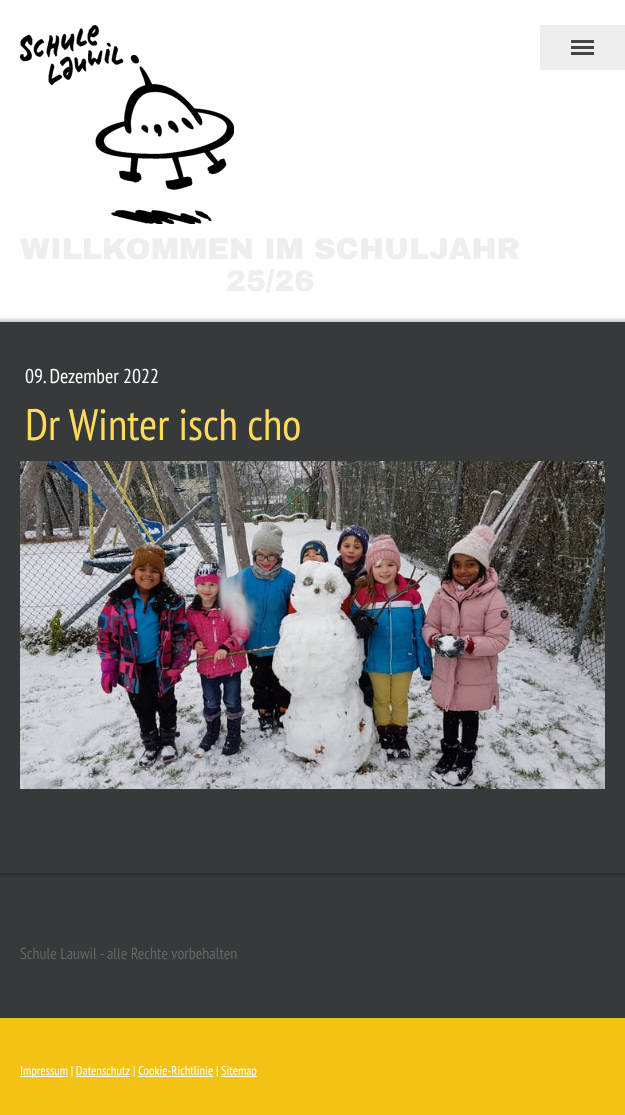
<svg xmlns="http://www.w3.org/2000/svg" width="625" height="1115">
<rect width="100%" height="100%" fill="#fff"/>
<rect x="540" y="25" width="85" height="45" fill="#eee"/>
<rect x="571" y="46" width="23" height="3" fill="#444"/>
<rect x="571" y="40" width="23" height="3" fill="#444"/>
<rect x="571" y="52" width="23" height="3" fill="#444"/>
<image x="20" y="25" width="214" height="199" href="media/1.png"/>
<text x="20" y="259" style="font-family:Archivo Black;font-size:30px;font-weight:900;fill:#eee">WILLKOMMEN IM SCHULJAHR</text>
<text x="226" y="291" style="font-family:Archivo Black;font-size:30px;font-weight:900;fill:#eee">25/26</text>
<rect y="873" width="625" height="145" fill="#363a3b"/>
<rect x="-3" y="319" width="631" height="557" fill="#00000033" filter="blur(1.5px)"/>
<rect y="322" width="625" height="551" fill="#363a3b"/>
<text x="25" y="383" style="font-family:PT Sans Narrow;font-size:20px;fill:#fff">09. Dezember 2022</text>
<text x="25" y="440" style="font-family:PT Sans Narrow;font-size:44px;fill:#ffda5b">Dr Winter isch cho</text>
<image x="20" y="461" width="585" height="328" href="media/2.png"/>
<text x="20" y="959" style="font-family:PT Sans Narrow;font-size:16px;fill:#666">Schule Lauwil - alle Rechte vorbehalten</text>
<rect y="1018" width="625" height="97" fill="#f2c314"/>
<rect x="20" y="1076" width="48" height="1" fill="#fff"/>
<text x="20" y="1075" style="font-family:PT Sans Narrow;font-size:12.75px;fill:#fff">Impressum | Datenschutz</text>
<text x="133" y="1075" style="font-family:PT Sans Narrow;font-size:12.75px;fill:#fff">| Cookie-Richtlinie |</text>
<rect x="221" y="1076" width="36" height="1" fill="#fff"/>
<text x="221" y="1075" style="font-family:PT Sans Narrow;font-size:12.75px;fill:#fff">Sitemap</text>
<rect x="76" y="1076" width="54" height="1" fill="#fff"/>
<rect x="138" y="1076" width="75" height="1" fill="#fff"/>
</svg>
